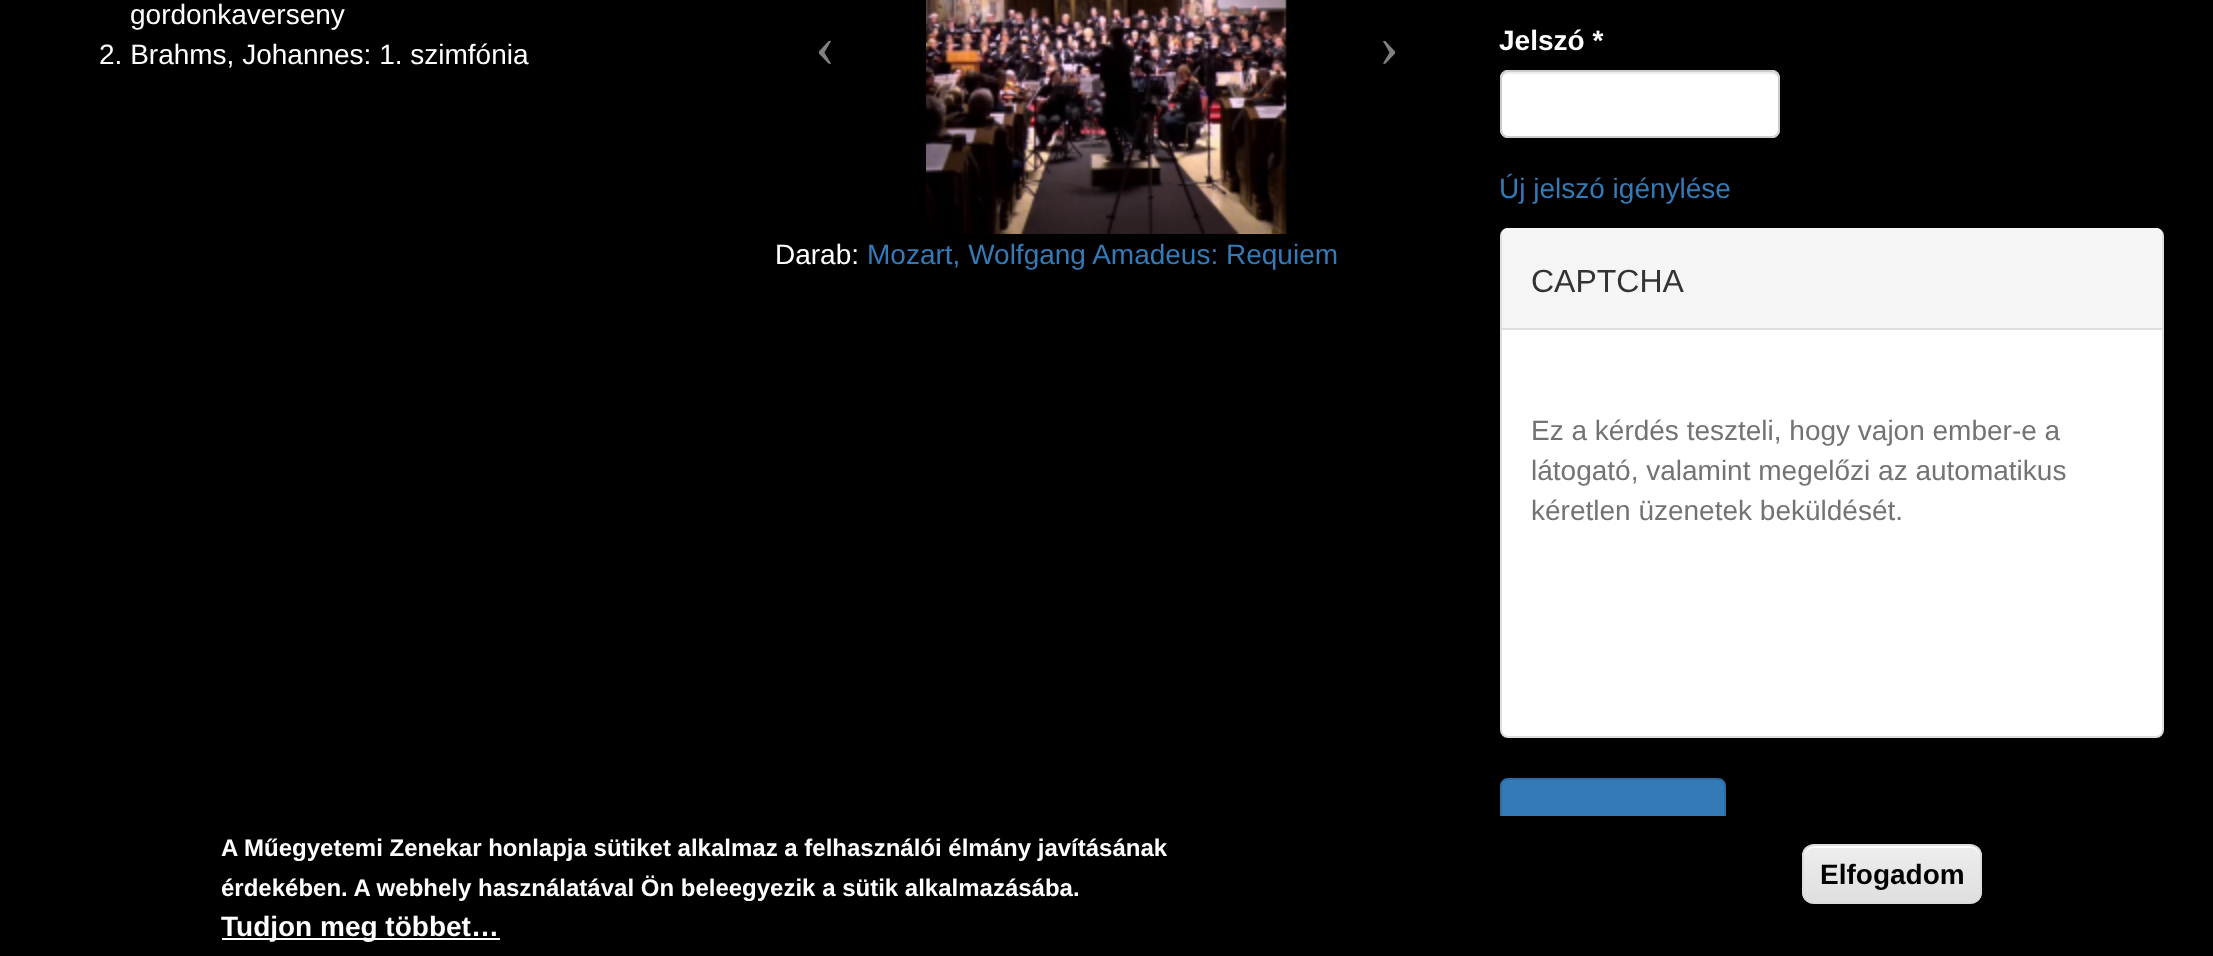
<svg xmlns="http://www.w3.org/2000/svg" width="2213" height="956">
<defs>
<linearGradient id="g1" gradientUnits="userSpaceOnUse" x1="774" y1="34" x2="874" y2="34"><stop offset="0" stop-color="#000" stop-opacity="0.25"/><stop offset="1" stop-color="#000" stop-opacity="0"/></linearGradient>
<clipPath id="clip1"><rect x="1802" y="844" width="180" height="60" rx="12"/></clipPath>
<linearGradient id="g2" gradientUnits="userSpaceOnUse" x1="1892" y1="846" x2="1892" y2="902"><stop offset="0.05" stop-color="#ededed"/><stop offset="1" stop-color="#dfdfdf"/></linearGradient>
</defs>
<rect width="100%" height="100%" fill="#000"/>
<text x="130" y="24" style="font-family:Liberation Sans;font-size:28px;fill:#fff">gordonkaverseny</text>
<text x="99" y="64" style="font-family:Liberation Sans;font-size:28px;fill:#fff">2. Brahms, Johannes: 1. szimfónia</text>
<rect x="776" y="243" width="80" height="22" fill="url(#g1)"/>
<text x="815" y="66" style="font-family:Liberation Serif;font-size:60px;fill:#808080">‹</text>
<text x="1379" y="66" style="font-family:Liberation Serif;font-size:60px;fill:#808080">›</text>
<image x="926" y="0" width="361" height="234" href="media/1.png"/>
<text x="775" y="264" style="font-family:Liberation Sans;font-size:28px;fill:#fff">Darab:</text>
<text x="867" y="264" style="font-family:Liberation Sans;font-size:28px;fill:#337ab7">Mozart, Wolfgang Amadeus: Requiem</text>
<text x="1499" y="50" style="font-family:Liberation Sans;font-size:28px;font-weight:bold;fill:#fff">Jelszó *</text>
<rect x="1500" y="70" width="280" height="68" rx="8" fill="#fff"/>
<path d="M1508 74h264c3 0 6 3 6 6c0-3-1-7-5-8h-266c-4 1-5 5-5 8c0-3 3-6 6-6z" fill="#ececec"/>
<rect x="1501" y="71" width="278" height="66" rx="7" fill="none" stroke="#ccc" stroke-width="2"/>
<text x="1499" y="198" style="font-family:Liberation Sans;font-size:28px;fill:#337ab7">Új jelszó igénylése</text>
<rect x="1501" y="229" width="662" height="508" rx="7" fill="#fff" stroke="#ddd" stroke-width="2"/>
<path d="M1508 228h648c3.5 0 6 2.5 6 6v96h-660v-96c0-3.5 2.5-6 6-6z" fill="#f5f5f5"/>
<rect x="1502" y="328" width="660" height="2" fill="#ddd"/>
<text x="1531" y="292" style="font-family:Liberation Sans;font-size:32px;fill:#333">CAPTCHA</text>
<text x="1531" y="440" style="font-family:Liberation Sans;font-size:28px;fill:#737373">Ez a kérdés teszteli, hogy vajon ember-e a</text>
<text x="1531" y="480" style="font-family:Liberation Sans;font-size:28px;fill:#737373">látogató, valamint megelőzi az automatikus</text>
<text x="1531" y="520" style="font-family:Liberation Sans;font-size:28px;fill:#737373">kéretlen üzenetek beküldését.</text>
<rect x="1501" y="779" width="224" height="66" rx="7" fill="#337ab7" stroke="#2e6da4" stroke-width="2"/>
<rect x="1500" y="816" width="226" height="30" fill="#000"/>
<text x="221" y="856" style="font-family:Liberation Sans;font-size:24px;font-weight:bold;fill:#fff">A Műegyetemi Zenekar honlapja sütiket alkalmaz a felhasználói élmány javításának</text>
<text x="221" y="896" style="font-family:Liberation Sans;font-size:24px;font-weight:bold;fill:#fff">érdekében. A webhely használatával Ön beleegyezik a sütik alkalmazásába.</text>
<rect x="222" y="938" width="278" height="2" fill="#fff"/>
<text x="221" y="936" style="font-family:Liberation Sans;font-size:28px;font-weight:bold;fill:#fff">Tudjon meg többet…</text>
<g clip-path="url(#clip1)">
<rect x="1802" y="846" width="180" height="56" fill="url(#g2)"/>
</g>
<path d="M1814 848h156c6 0 10 4 10 10v-2c0-6-4-10-10-10h-156c-6 0-10 4-10 10v2c0-6 4-10 10-10z" fill="#fff"/>
<rect x="1803" y="845" width="178" height="58" rx="11" fill="none" stroke="#dcdcdc" stroke-width="2"/>
<text x="1820" y="884" style="font-family:Liberation Sans;font-size:28px;font-weight:bold;fill:#000">Elfogadom</text>
</svg>
